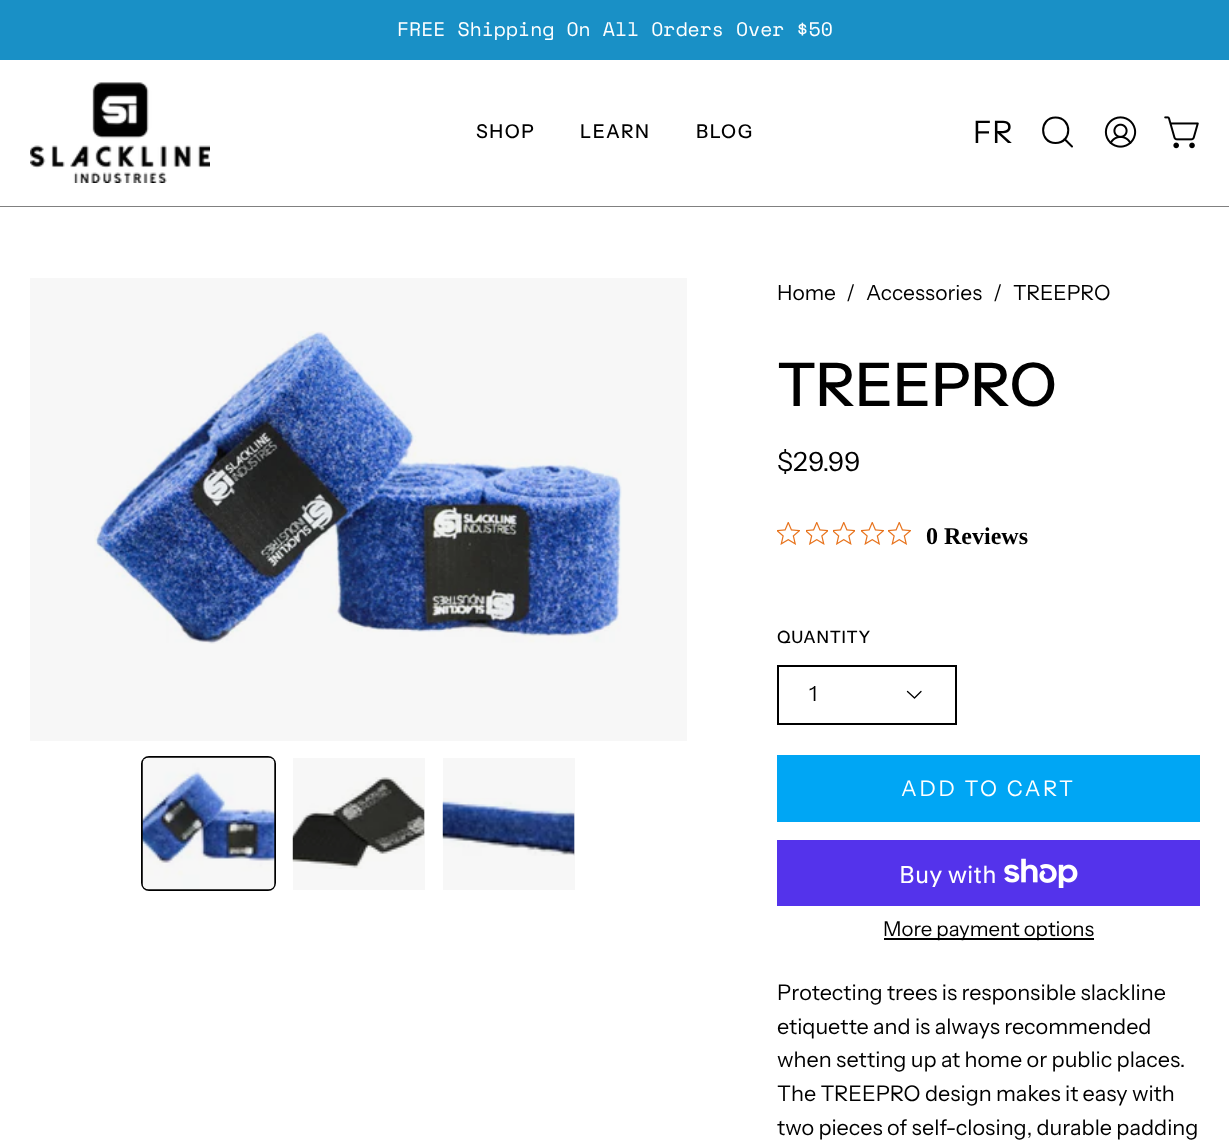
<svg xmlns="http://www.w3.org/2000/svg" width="1229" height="1140">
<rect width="100%" height="100%" fill="#fff"/>
<rect width="1229" height="60" fill="#1990c6"/>
<text x="397" y="36" style="font-family:Space Mono;font-size:19.8px;fill:#fff">FREE Shipping On All Orders Over $50</text>
<image x="30" y="82" width="180" height="101" href="media/1.png"/>
<text x="476" y="138" style="font-family:Instrument Sans;font-size:19px;font-weight:500;letter-spacing:1.5px;fill:#000">SHOP</text>
<text x="580" y="138" style="font-family:Instrument Sans;font-size:19px;font-weight:500;letter-spacing:1.5px;fill:#000">LEARN</text>
<text x="696" y="138" style="font-family:Instrument Sans;font-size:19px;font-weight:500;letter-spacing:1.5px;fill:#000">BLOG</text>
<text x="973" y="143" style="font-family:Instrument Sans;font-size:31px;letter-spacing:1.5px;fill:#000">FR</text>
<path d="M1055.5 143c17 0 17-25.5 0-25.5c-16.5 0-16.5 25.5 0 25.5zm9-4l7.5 7.5" fill="none" stroke="#000" stroke-width="2" stroke-linecap="round" stroke-linejoin="round"/>
<image x="1104" y="116" width="33" height="32" href="media/2.png"/>
<image x="1164" y="116" width="35" height="33" href="media/3.png"/>
<rect y="206" width="1229" height="1" fill="#808080"/>
<image x="94" y="331" width="528" height="313" href="media/4.png"/>
<rect x="30" y="278" width="657" height="463" fill="#00000008"/>
<rect x="142" y="757" width="133" height="133" rx="7" fill="none" stroke="#000" stroke-width="2"/>
<image x="142" y="757" width="133" height="133" href="media/5.png"/>
<rect x="143" y="758" width="132" height="132" fill="#00000008"/>
<image x="292" y="777" width="133" height="92" href="media/6.png"/>
<rect x="293" y="758" width="132" height="132" fill="#00000008"/>
<image x="442" y="798" width="133" height="58" href="media/7.png"/>
<rect x="443" y="758" width="132" height="132" fill="#00000008"/>
<text x="777" y="300" style="font-family:Instrument Sans;font-size:21px;fill:#000">Home</text>
<text x="846" y="300" style="font-family:Instrument Sans;font-size:21px;fill:#000">/</text>
<text x="866" y="300" style="font-family:Instrument Sans;font-size:21px;fill:#000">Accessories</text>
<text x="993" y="300" style="font-family:Instrument Sans;font-size:21px;fill:#000">/</text>
<text x="1013" y="300" style="font-family:Instrument Sans;font-size:21px;fill:#000">TREEPRO</text>
<text x="777" y="406" style="font-family:Instrument Sans;font-size:60px;font-weight:500;fill:#000">TREEPRO</text>
<text x="777" y="471" style="font-family:Instrument Sans;font-size:26.5px;fill:#000">$29.99</text>
<image x="777" y="522" width="23" height="23" href="media/8.png"/>
<image x="806" y="522" width="22" height="23" href="media/9.png"/>
<image x="833" y="522" width="22" height="23" href="media/9.png"/>
<image x="861" y="522" width="23" height="23" href="media/8.png"/>
<image x="888" y="522" width="23" height="23" href="media/8.png"/>
<text x="926" y="544" style="font-family:Liberation Serif;font-size:24px;font-weight:bold;fill:#000">0 Reviews</text>
<text x="777" y="643" style="font-family:Instrument Sans;font-size:17px;font-weight:500;letter-spacing:0.75px;fill:#000">QUANTITY</text>
<rect x="778" y="666" width="178" height="58" fill="none" stroke="#000" stroke-width="2"/>
<text x="809" y="701" style="font-family:Instrument Sans;font-size:21px;fill:#000">1</text>
<path d="M921 691.5l-6.5 6.5l-7-6.5" fill="none" stroke="#000" stroke-width="1.3" stroke-linecap="round" stroke-linejoin="round"/>
<rect x="777" y="755" width="423" height="67" fill="#00a6f4"/>
<text x="901" y="796" style="font-family:Instrument Sans;font-size:21.6px;letter-spacing:2.75px;fill:#fff">ADD TO CART</text>
<rect x="777" y="840" width="423" height="66" fill="#5433eb"/>
<text x="899" y="883" style="font-family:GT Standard;font-size:24px;fill:#fff">Buy with</text>
<image x="1004" y="858" width="74" height="30" href="media/10.png"/>
<rect x="884" y="938" width="210" height="2" fill="#000"/>
<text x="883" y="936" style="font-family:Instrument Sans;font-size:20.4px;fill:#000">More payment options</text>
<text x="777" y="1000" style="font-family:Instrument Sans;font-size:21.6px;fill:#000">Protecting trees is responsible slackline</text>
<text x="777" y="1034" style="font-family:Instrument Sans;font-size:21.6px;fill:#000">etiquette and is always recommended</text>
<text x="777" y="1067" style="font-family:Instrument Sans;font-size:21.6px;fill:#000">when setting up at home or public places.</text>
<text x="777" y="1101" style="font-family:Instrument Sans;font-size:21.6px;fill:#000">The TREEPRO design makes it easy with</text>
<text x="777" y="1135" style="font-family:Instrument Sans;font-size:21.6px;fill:#000">two pieces of self-closing, durable padding</text>
</svg>
